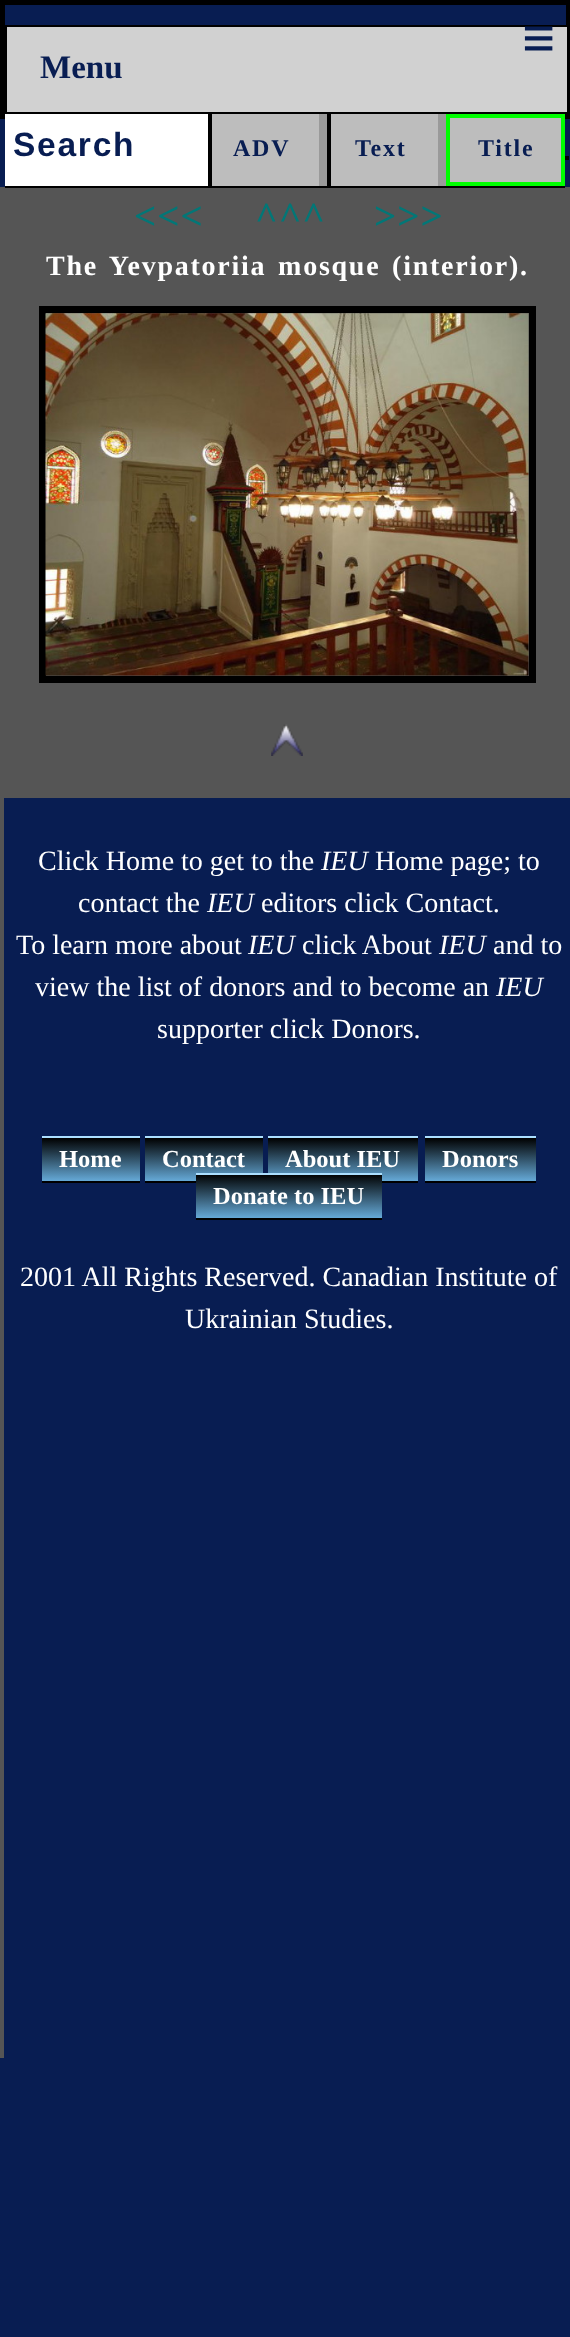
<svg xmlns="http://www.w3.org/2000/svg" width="570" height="2337">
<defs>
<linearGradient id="g1" gradientUnits="userSpaceOnUse" x1="91" y1="1138" x2="91" y2="1181"><stop offset="0" stop-color="#000"/><stop offset="1" stop-color="#65a9d7"/></linearGradient>
<linearGradient id="g2" gradientUnits="userSpaceOnUse" x1="204" y1="1138" x2="204" y2="1181"><stop offset="0" stop-color="#000"/><stop offset="1" stop-color="#65a9d7"/></linearGradient>
<linearGradient id="g3" gradientUnits="userSpaceOnUse" x1="343" y1="1138" x2="343" y2="1181"><stop offset="0" stop-color="#000"/><stop offset="1" stop-color="#65a9d7"/></linearGradient>
<linearGradient id="g4" gradientUnits="userSpaceOnUse" x1="480" y1="1138" x2="480" y2="1181"><stop offset="0" stop-color="#000"/><stop offset="1" stop-color="#65a9d7"/></linearGradient>
<linearGradient id="g5" gradientUnits="userSpaceOnUse" x1="289" y1="1174" x2="289" y2="1218"><stop offset="0" stop-color="#000"/><stop offset="1" stop-color="#65a9d7"/></linearGradient>
</defs>
<rect width="100%" height="100%" fill="#081d52"/>
<rect x="2.5" y="2.5" width="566" height="114" fill="none" stroke="#000" stroke-width="5"/>
<rect x="6" y="26" width="562" height="87" fill="#d1d1d1" stroke="#000" stroke-width="2"/>
<text x="522" y="58" style="font-family:Liberation Serif;font-size:59px;font-weight:bold;fill:#081d52">≡</text>
<text x="40" y="78" style="font-family:Liberation Serif;font-size:33px;font-weight:bold;fill:#081d52">Menu</text>
<rect x="5" y="114" width="203" height="72" fill="#fff"/>
<rect y="187" width="570" height="1871" fill="#555"/>
<rect x="5" y="186" width="560" height="2" fill="#000"/>
<text x="13" y="156" style="font-family:Liberation Sans;font-size:33.5px;font-weight:bold;letter-spacing:1.75px;fill:#081d52">Search</text>
<rect x="212" y="114" width="107" height="72" fill="#bdbdbd"/>
<rect x="319" y="114" width="8" height="72" fill="#9a9a9a"/>
<rect x="208" y="114" width="4" height="72" fill="#000"/>
<text x="233" y="156" style="font-family:Liberation Serif;font-size:24px;font-weight:bold;letter-spacing:1.75px;fill:#081d52">ADV</text>
<rect x="331" y="114" width="107" height="72" fill="#bdbdbd"/>
<rect x="438" y="114" width="8" height="72" fill="#9a9a9a"/>
<rect x="327" y="114" width="4" height="72" fill="#000"/>
<text x="355" y="156" style="font-family:Liberation Serif;font-size:24px;font-weight:bold;letter-spacing:1.75px;fill:#081d52">Text</text>
<rect x="448" y="116" width="115" height="68" fill="#bdbdbd" stroke="#0f0" stroke-width="4"/>
<text x="478" y="156" style="font-family:Liberation Serif;font-size:24px;font-weight:bold;letter-spacing:1.75px;fill:#081d52">Title</text>
<rect x="565" y="156" width="4" height="4" fill="#000"/>
<text x="134" y="229" style="font-family:Liberation Serif;font-size:39px;font-weight:bold;letter-spacing:1px;fill:#027777">&lt;&lt;&lt;</text>
<text x="255" y="229" style="font-family:Liberation Serif;font-size:39px;font-weight:bold;letter-spacing:1px;fill:#027777">^^^</text>
<text x="374" y="229" style="font-family:Liberation Serif;font-size:39px;font-weight:bold;letter-spacing:1px;fill:#027777">&gt;&gt;&gt;</text>
<text x="46" y="275" word-spacing="3" style="font-family:Liberation Serif;font-size:28px;font-weight:bold;letter-spacing:1.75px;fill:#fff">The Yevpatoriia mosque (interior).</text>
<rect x="42.5" y="309.5" width="490" height="370" fill="none" stroke="#000" stroke-width="7"/>
<image x="45" y="313" width="484" height="363" href="media/1.png"/>
<image x="271" y="724" width="32" height="32" href="media/2.png"/>
<rect x="4" y="798" width="566" height="1260" fill="#081d52"/>
<text x="38" y="870" style="font-family:Liberation Serif;font-size:28px;fill:#fff">Click Home to get to the</text>
<text x="321" y="870" style="font-family:Liberation Serif;font-size:28px;font-style:italic;fill:#fff">IEU</text>
<text x="375" y="870" style="font-family:Liberation Serif;font-size:28px;fill:#fff">Home page; to</text>
<text x="78" y="912" style="font-family:Liberation Serif;font-size:28px;fill:#fff">contact the</text>
<text x="207" y="912" style="font-family:Liberation Serif;font-size:28px;font-style:italic;fill:#fff">IEU</text>
<text x="261" y="912" style="font-family:Liberation Serif;font-size:28px;fill:#fff">editors click Contact.</text>
<text x="16" y="954" style="font-family:Liberation Serif;font-size:28px;fill:#fff">To learn more about</text>
<text x="248" y="954" style="font-family:Liberation Serif;font-size:28px;font-style:italic;fill:#fff">IEU</text>
<text x="302" y="954" style="font-family:Liberation Serif;font-size:28px;fill:#fff">click About</text>
<text x="439" y="954" style="font-family:Liberation Serif;font-size:28px;font-style:italic;fill:#fff">IEU</text>
<text x="493" y="954" style="font-family:Liberation Serif;font-size:28px;fill:#fff">and to</text>
<text x="35" y="996" style="font-family:Liberation Serif;font-size:28px;fill:#fff">view the list of donors and to become an</text>
<text x="496" y="996" style="font-family:Liberation Serif;font-size:28px;font-style:italic;fill:#fff">IEU</text>
<text x="157" y="1038" style="font-family:Liberation Serif;font-size:28px;fill:#fff">supporter click Donors.</text>
<rect x="42" y="1138" width="98" height="43" fill="url(#g1)"/>
<text x="59" y="1167" style="font-family:Liberation Serif;font-size:24.5px;font-weight:bold;fill:#fff">Home</text>
<rect x="42" y="1181" width="98" height="2" fill="#000"/>
<rect x="42" y="1136" width="98" height="2" fill="#abdfff"/>
<path d="M145 1138v45h118v-45h-1v43h-117z" fill="#000"/>
<rect x="145" y="1138" width="118" height="43" fill="url(#g2)"/>
<text x="162" y="1167" style="font-family:Liberation Serif;font-size:24.5px;font-weight:bold;fill:#fff">Contact</text>
<rect x="145" y="1136" width="118" height="2" fill="#abdfff"/>
<rect x="268" y="1138" width="150" height="43" fill="url(#g3)"/>
<text x="285" y="1167" style="font-family:Liberation Serif;font-size:24.5px;font-weight:bold;fill:#fff">About IEU</text>
<rect x="382" y="1181" width="36" height="2" fill="#000"/>
<rect x="268" y="1136" width="150" height="2" fill="#abdfff"/>
<rect x="425" y="1138" width="111" height="43" fill="url(#g4)"/>
<text x="442" y="1167" style="font-family:Liberation Serif;font-size:24.5px;font-weight:bold;fill:#fff">Donors</text>
<path d="M425 1138v45h111v-45v43h-111z" fill="#000"/>
<rect x="425" y="1136" width="111" height="2" fill="#abdfff"/>
<rect x="196" y="1175" width="186" height="43" fill="url(#g5)"/>
<text x="213" y="1204" style="font-family:Liberation Serif;font-size:24.5px;font-weight:bold;fill:#fff">Donate to IEU</text>
<path d="M196 1218v2h186v-46v44z" fill="#000"/>
<rect x="196" y="1173" width="186" height="2" fill="#abdfff"/>
<text x="20" y="1286" style="font-family:Liberation Serif;font-size:28px;fill:#fff">2001 All Rights Reserved. Canadian Institute of</text>
<text x="185" y="1328" style="font-family:Liberation Serif;font-size:28px;fill:#fff">Ukrainian Studies.</text>
</svg>
